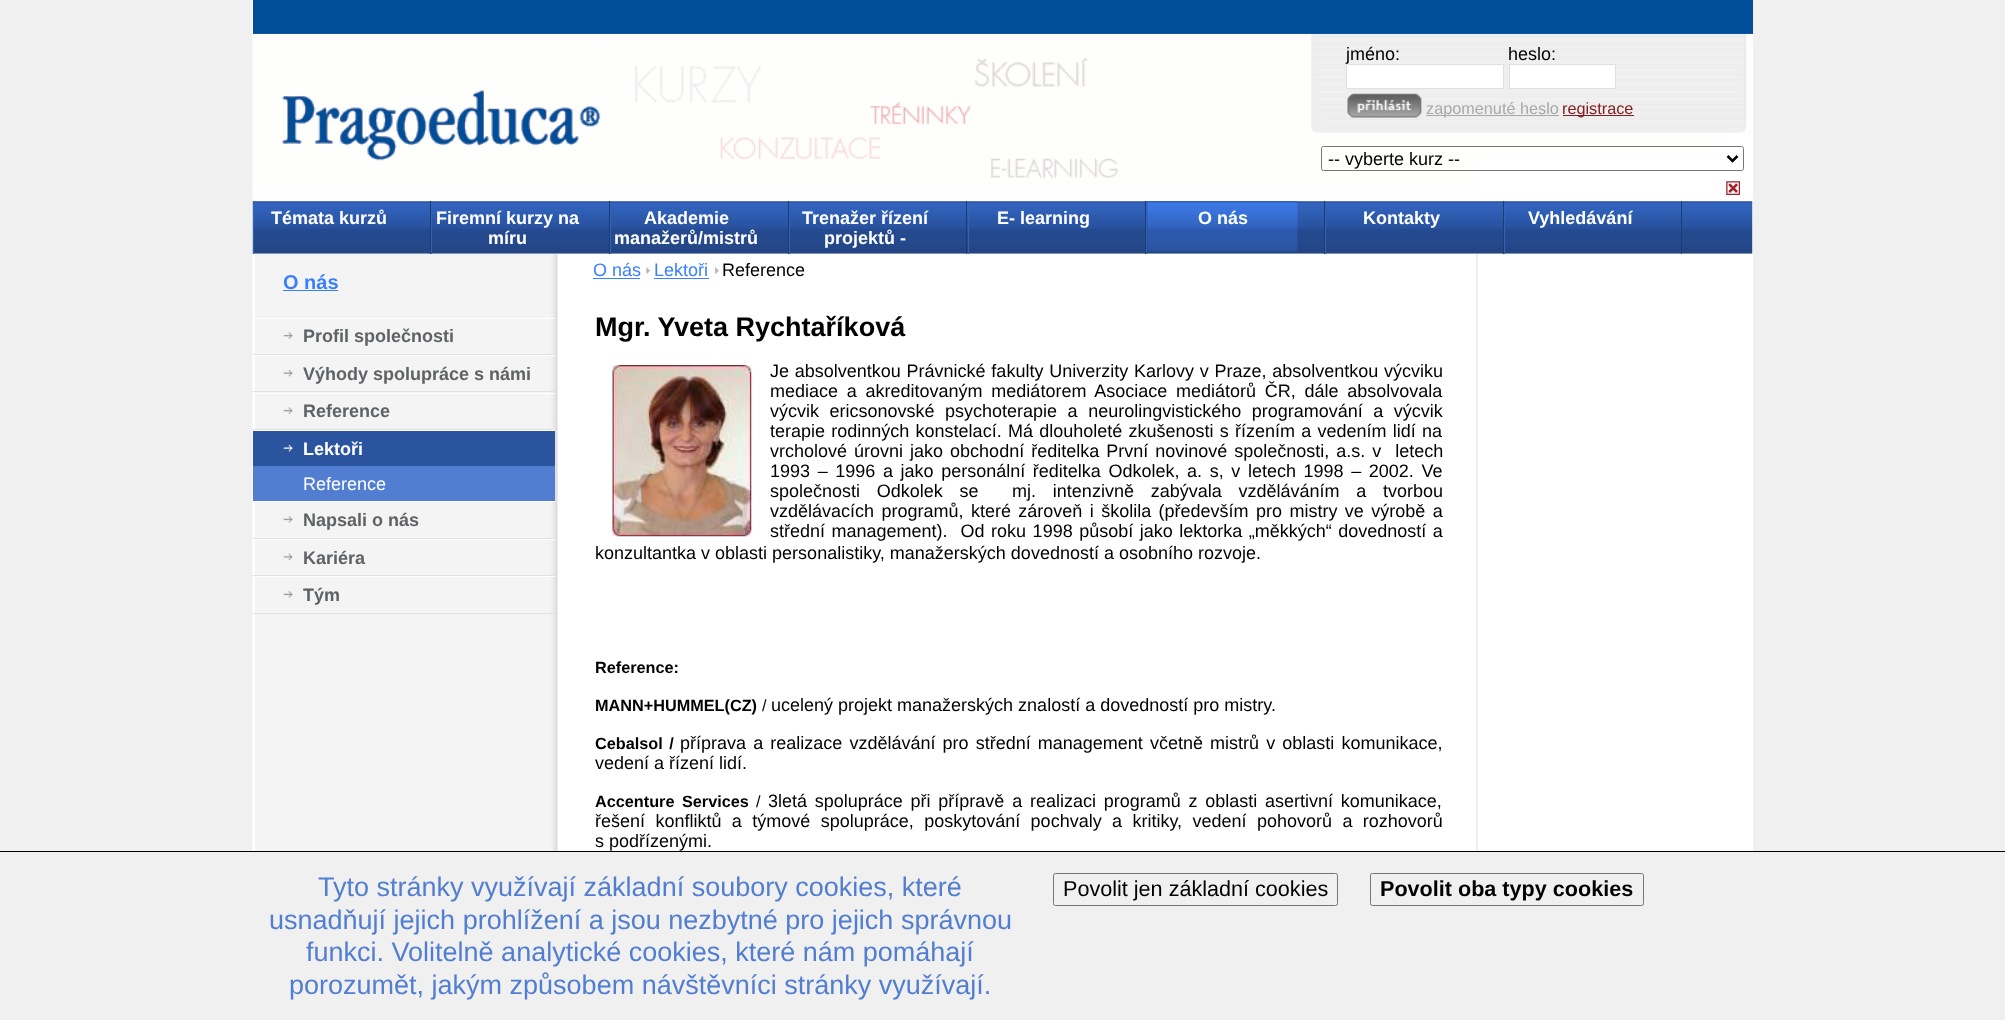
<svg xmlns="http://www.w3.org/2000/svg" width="2005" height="1020">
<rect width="100%" height="100%" fill="#f0f0f0"/>
<rect x="1477" y="254" width="276" height="597" fill="#fff"/>
<image x="252" y="0" width="1226" height="851" href="media/1.png"/>
<rect x="253" width="1500" height="34" fill="#004d99"/>
<rect x="255" y="34" width="1498" height="220" fill="#fff"/>
<image x="253" y="33" width="1499" height="153" href="media/3.png"/>
<text x="1346" y="60" style="font-family:Liberation Sans;font-size:18px;fill:#000">jméno:</text>
<text x="1508" y="60" style="font-family:Liberation Sans;font-size:18px;fill:#000">heslo:</text>
<rect x="1346.5" y="64.5" width="157" height="24" fill="#fff" stroke="#e0e0e0"/>
<rect x="1509.5" y="64.5" width="106" height="24" fill="#fff" stroke="#e0e0e0"/>
<rect x="1346" y="94" width="77" height="16" fill="#efefef"/>
<image x="1347" y="93" width="75" height="25" href="media/2.png"/>
<rect x="1426" y="115" width="133" height="1" fill="#a8a8a8"/>
<text x="1426" y="114" style="font-family:Liberation Sans;font-size:16.25px;fill:#a8a8a8">zapomenuté heslo</text>
<rect x="1563" y="115" width="71" height="1" fill="#831b20"/>
<text x="1562" y="114" style="font-family:Liberation Sans;font-size:16.25px;fill:#831b20">registrace</text>
<rect x="1321.5" y="146.5" width="422" height="24" rx="2" fill="none" stroke="#767676"/>
<path d="M1727.5 156l5 5l5-5" fill="none" stroke="#000" stroke-width="2.5"/>
<text x="1328" y="165" style="font-family:Liberation Sans;font-size:18px;fill:#000">-- vyberte kurz --</text>
<image x="252" y="201" width="1501" height="53" href="media/4.png"/>
<rect x="430" y="201" width="1" height="53" fill="#1d3c72"/>
<rect x="253" y="201" width="1" height="53" fill="#3163b8"/>
<text x="271" y="224" style="font-family:Liberation Sans;font-size:18px;font-weight:bold;fill:#fff">Témata kurzů</text>
<rect x="609" y="201" width="1" height="53" fill="#1d3c72"/>
<rect x="431" y="201" width="1" height="53" fill="#3163b8"/>
<text x="436" y="224" style="font-family:Liberation Sans;font-size:18px;font-weight:bold;fill:#fff">Firemní kurzy na</text>
<text x="488" y="244" style="font-family:Liberation Sans;font-size:18px;font-weight:bold;fill:#fff">míru</text>
<rect x="788" y="201" width="1" height="53" fill="#1d3c72"/>
<rect x="610" y="201" width="1" height="53" fill="#3163b8"/>
<text x="644" y="224" style="font-family:Liberation Sans;font-size:18px;font-weight:bold;fill:#fff">Akademie</text>
<text x="614" y="244" style="font-family:Liberation Sans;font-size:18px;font-weight:bold;fill:#fff">manažerů/mistrů</text>
<rect x="966" y="201" width="1" height="53" fill="#1d3c72"/>
<rect x="789" y="201" width="1" height="53" fill="#3163b8"/>
<text x="802" y="224" style="font-family:Liberation Sans;font-size:18px;font-weight:bold;fill:#fff">Trenažer řízení</text>
<text x="824" y="244" style="font-family:Liberation Sans;font-size:18px;font-weight:bold;fill:#fff">projektů -</text>
<rect x="1145" y="201" width="1" height="53" fill="#1d3c72"/>
<rect x="968" y="201" width="1" height="53" fill="#3163b8"/>
<text x="997" y="224" style="font-family:Liberation Sans;font-size:18px;font-weight:bold;fill:#fff">E- learning</text>
<rect x="1324" y="201" width="1" height="53" fill="#1d3c72"/>
<rect x="1146" y="201" width="1" height="53" fill="#3163b8"/>
<image x="1147" y="201" width="151" height="51" href="media/5.png"/>
<text x="1198" y="224" style="font-family:Liberation Sans;font-size:18px;font-weight:bold;fill:#fff">O nás</text>
<rect x="1503" y="201" width="1" height="53" fill="#1d3c72"/>
<rect x="1325" y="201" width="1" height="53" fill="#3163b8"/>
<text x="1363" y="224" style="font-family:Liberation Sans;font-size:18px;font-weight:bold;fill:#fff">Kontakty</text>
<rect x="1681" y="201" width="1" height="53" fill="#1d3c72"/>
<rect x="1504" y="201" width="1" height="53" fill="#3163b8"/>
<text x="1528" y="224" style="font-family:Liberation Sans;font-size:18px;font-weight:bold;fill:#fff">Vyhledávání</text>
<image x="1726" y="181" width="14" height="14" href="media/6.png"/>
<text x="283" y="289" style="font-family:Liberation Sans;font-size:20px;font-weight:bold;fill:#3980ff">O nás</text>
<rect x="283" y="290" width="55" height="1" fill="#3980ff"/>
<image x="283" y="332" width="10" height="7" href="media/7.png"/>
<rect x="253" y="318" width="302" height="1" fill="#fff"/>
<rect x="253" y="354" width="302" height="1" fill="#e0e0e0"/>
<text x="303" y="342" style="font-family:Liberation Sans;font-size:18px;font-weight:bold;fill:#5f6365">Profil společnosti</text>
<image x="283" y="369" width="10" height="8" href="media/8.png"/>
<rect x="253" y="355" width="302" height="1" fill="#fff"/>
<rect x="253" y="391" width="302" height="1" fill="#e0e0e0"/>
<text x="303" y="380" style="font-family:Liberation Sans;font-size:18px;font-weight:bold;fill:#5f6365">Výhody spolupráce s námi</text>
<image x="283" y="407" width="10" height="7" href="media/7.png"/>
<rect x="253" y="393" width="302" height="1" fill="#fff"/>
<rect x="253" y="429" width="302" height="1" fill="#e0e0e0"/>
<text x="303" y="417" style="font-family:Liberation Sans;font-size:18px;font-weight:bold;fill:#5f6365">Reference</text>
<rect x="253" y="431" width="302" height="35" fill="#2a549e"/>
<image x="283" y="444" width="10" height="8" href="media/9.png"/>
<rect x="253" y="430" width="302" height="1" fill="#fff"/>
<text x="303" y="455" style="font-family:Liberation Sans;font-size:18px;font-weight:bold;fill:#fff">Lektoři</text>
<rect x="253" y="466" width="302" height="35" fill="#527ed1"/>
<text x="303" y="490" style="font-family:Liberation Sans;font-size:18px;fill:#fff">Reference</text>
<image x="283" y="516" width="10" height="7" href="media/10.png"/>
<rect x="253" y="501" width="302" height="1" fill="#fff"/>
<rect x="253" y="538" width="302" height="1" fill="#e0e0e0"/>
<text x="303" y="526" style="font-family:Liberation Sans;font-size:18px;font-weight:bold;fill:#5f6365">Napsali o nás</text>
<image x="283" y="553" width="10" height="8" href="media/11.png"/>
<rect x="253" y="539" width="302" height="1" fill="#fff"/>
<rect x="253" y="575" width="302" height="1" fill="#e0e0e0"/>
<text x="303" y="564" style="font-family:Liberation Sans;font-size:18px;font-weight:bold;fill:#5f6365">Kariéra</text>
<image x="283" y="591" width="10" height="7" href="media/10.png"/>
<rect x="253" y="576" width="302" height="1" fill="#fff"/>
<rect x="253" y="613" width="302" height="1" fill="#e0e0e0"/>
<text x="303" y="601" style="font-family:Liberation Sans;font-size:18px;font-weight:bold;fill:#5f6365">Tým</text>
<text x="593" y="276" style="font-family:Liberation Sans;font-size:18px;fill:#3980ff">O nás</text>
<rect x="593" y="278" width="47" height="1" fill="#3980ff"/>
<image x="646" y="267" width="5" height="7" href="media/12.png"/>
<text x="654" y="276" style="font-family:Liberation Sans;font-size:18px;fill:#3980ff">Lektoři</text>
<rect x="654" y="278" width="55" height="1" fill="#3980ff"/>
<image x="715" y="267" width="4" height="7" href="media/13.png"/>
<text x="722" y="276" style="font-family:Liberation Sans;font-size:18px;fill:#000">Reference</text>
<text x="595" y="336" style="font-family:Liberation Sans;font-size:27px;font-weight:bold;fill:#000">Mgr. Yveta Rychtaříková</text>
<text x="770" y="377" word-spacing="0.75" style="font-family:Liberation Sans;font-size:18px;fill:#000">Je absolventkou Právnické fakulty Univerzity Karlovy v Praze, absolventkou výcviku</text>
<text x="770" y="397" word-spacing="3.75" style="font-family:Liberation Sans;font-size:18px;fill:#000">mediace a akreditovaným mediátorem Asociace mediátorů ČR, dále absolvovala</text>
<text x="770" y="417" word-spacing="5.5" style="font-family:Liberation Sans;font-size:18px;fill:#000">výcvik ericsonovské psychoterapie a neurolingvistického programování a výcvik</text>
<text x="770" y="437" word-spacing="1.25" style="font-family:Liberation Sans;font-size:18px;fill:#000">terapie rodinných konstelací. Má dlouholeté zkušenosti s řízením a vedením lidí na</text>
<text x="770" y="457" word-spacing="2" style="font-family:Liberation Sans;font-size:18px;fill:#000" xml:space="preserve">vrcholové úrovni jako obchodní ředitelka První novinové společnosti, a.s. v  letech</text>
<text x="770" y="477" word-spacing="2.6" style="font-family:Liberation Sans;font-size:18px;fill:#000">1993 – 1996 a jako personální ředitelka Odkolek, a. s, v letech 1998 – 2002. Ve</text>
<text x="770" y="497" word-spacing="11.75" style="font-family:Liberation Sans;font-size:18px;fill:#000" xml:space="preserve">společnosti Odkolek se  mj. intenzivně zabývala vzděláváním a tvorbou</text>
<text x="770" y="517" word-spacing="2.4" style="font-family:Liberation Sans;font-size:18px;fill:#000">vzdělávacích programů, které zároveň i školila (především pro mistry ve výrobě a</text>
<text x="770" y="537" word-spacing="1.5" style="font-family:Liberation Sans;font-size:18px;fill:#000" xml:space="preserve">střední management).  Od roku 1998 působí jako lektorka „měkkých“ dovedností a</text>
<text x="595" y="559" style="font-family:Liberation Sans;font-size:18px;fill:#000">konzultantka v oblasti personalistiky, manažerských dovedností a osobního rozvoje.</text>
<image x="612" y="365" width="140" height="172" href="media/14.png"/>
<text x="595" y="673" style="font-family:Liberation Sans;font-size:16.25px;font-weight:bold;fill:#000">Reference:</text>
<text x="595" y="711" style="font-family:Liberation Sans;font-size:16.25px;font-weight:bold;fill:#000">MANN+HUMMEL(CZ)</text>
<text x="762" y="711" style="font-family:Liberation Sans;font-size:16.25px;fill:#000">/</text>
<text x="771" y="711" style="font-family:Liberation Sans;font-size:18px;fill:#000">ucelený projekt manažerských znalostí a dovedností pro mistry.</text>
<text x="595" y="749" word-spacing="2.1" style="font-family:Liberation Sans;font-size:16.25px;font-weight:bold;fill:#000">Cebalsol /</text>
<text x="680" y="749" word-spacing="2.1" style="font-family:Liberation Sans;font-size:18px;fill:#000">příprava a realizace vzdělávání pro střední management včetně mistrů v oblasti komunikace,</text>
<text x="595" y="769" style="font-family:Liberation Sans;font-size:18px;fill:#000">vedení a řízení lidí.</text>
<text x="595" y="807" word-spacing="3" style="font-family:Liberation Sans;font-size:16.25px;font-weight:bold;fill:#000">Accenture Services</text>
<text x="756" y="807" style="font-family:Liberation Sans;font-size:16.25px;fill:#000">/</text>
<text x="768" y="807" word-spacing="2.75" style="font-family:Liberation Sans;font-size:18px;fill:#000">3letá spolupráce při přípravě a realizaci programů z oblasti asertivní komunikace,</text>
<text x="595" y="827" word-spacing="5.4" style="font-family:Liberation Sans;font-size:18px;fill:#000">řešení konfliktů a týmové spolupráce, poskytování pochvaly a kritiky, vedení pohovorů a rozhovorů</text>
<text x="595" y="847" style="font-family:Liberation Sans;font-size:18px;fill:#000">s podřízenými.</text>
<rect y="851" width="2005" height="1" fill="#000"/>
<text x="318" y="896" style="font-family:Liberation Sans;font-size:27px;fill:#527ed1">Tyto stránky využívají základní soubory cookies, které</text>
<text x="269" y="929" style="font-family:Liberation Sans;font-size:27px;fill:#527ed1">usnadňují jejich prohlížení a jsou nezbytné pro jejich správnou</text>
<text x="306" y="961" style="font-family:Liberation Sans;font-size:27px;fill:#527ed1">funkci. Volitelně analytické cookies, které nám pomáhají</text>
<text x="289" y="994" style="font-family:Liberation Sans;font-size:27px;fill:#527ed1">porozumět, jakým způsobem návštěvníci stránky využívají.</text>
<rect x="1053.5" y="873.5" width="284" height="32" rx="2" fill="none" stroke="#767676"/>
<text x="1063" y="896" style="font-family:Liberation Sans;font-size:21.6px;fill:#000">Povolit jen základní cookies</text>
<rect x="1370.5" y="873.5" width="273" height="32" rx="2" fill="none" stroke="#767676"/>
<text x="1380" y="896" style="font-family:Liberation Sans;font-size:21.6px;font-weight:bold;fill:#000">Povolit oba typy cookies</text>
</svg>
